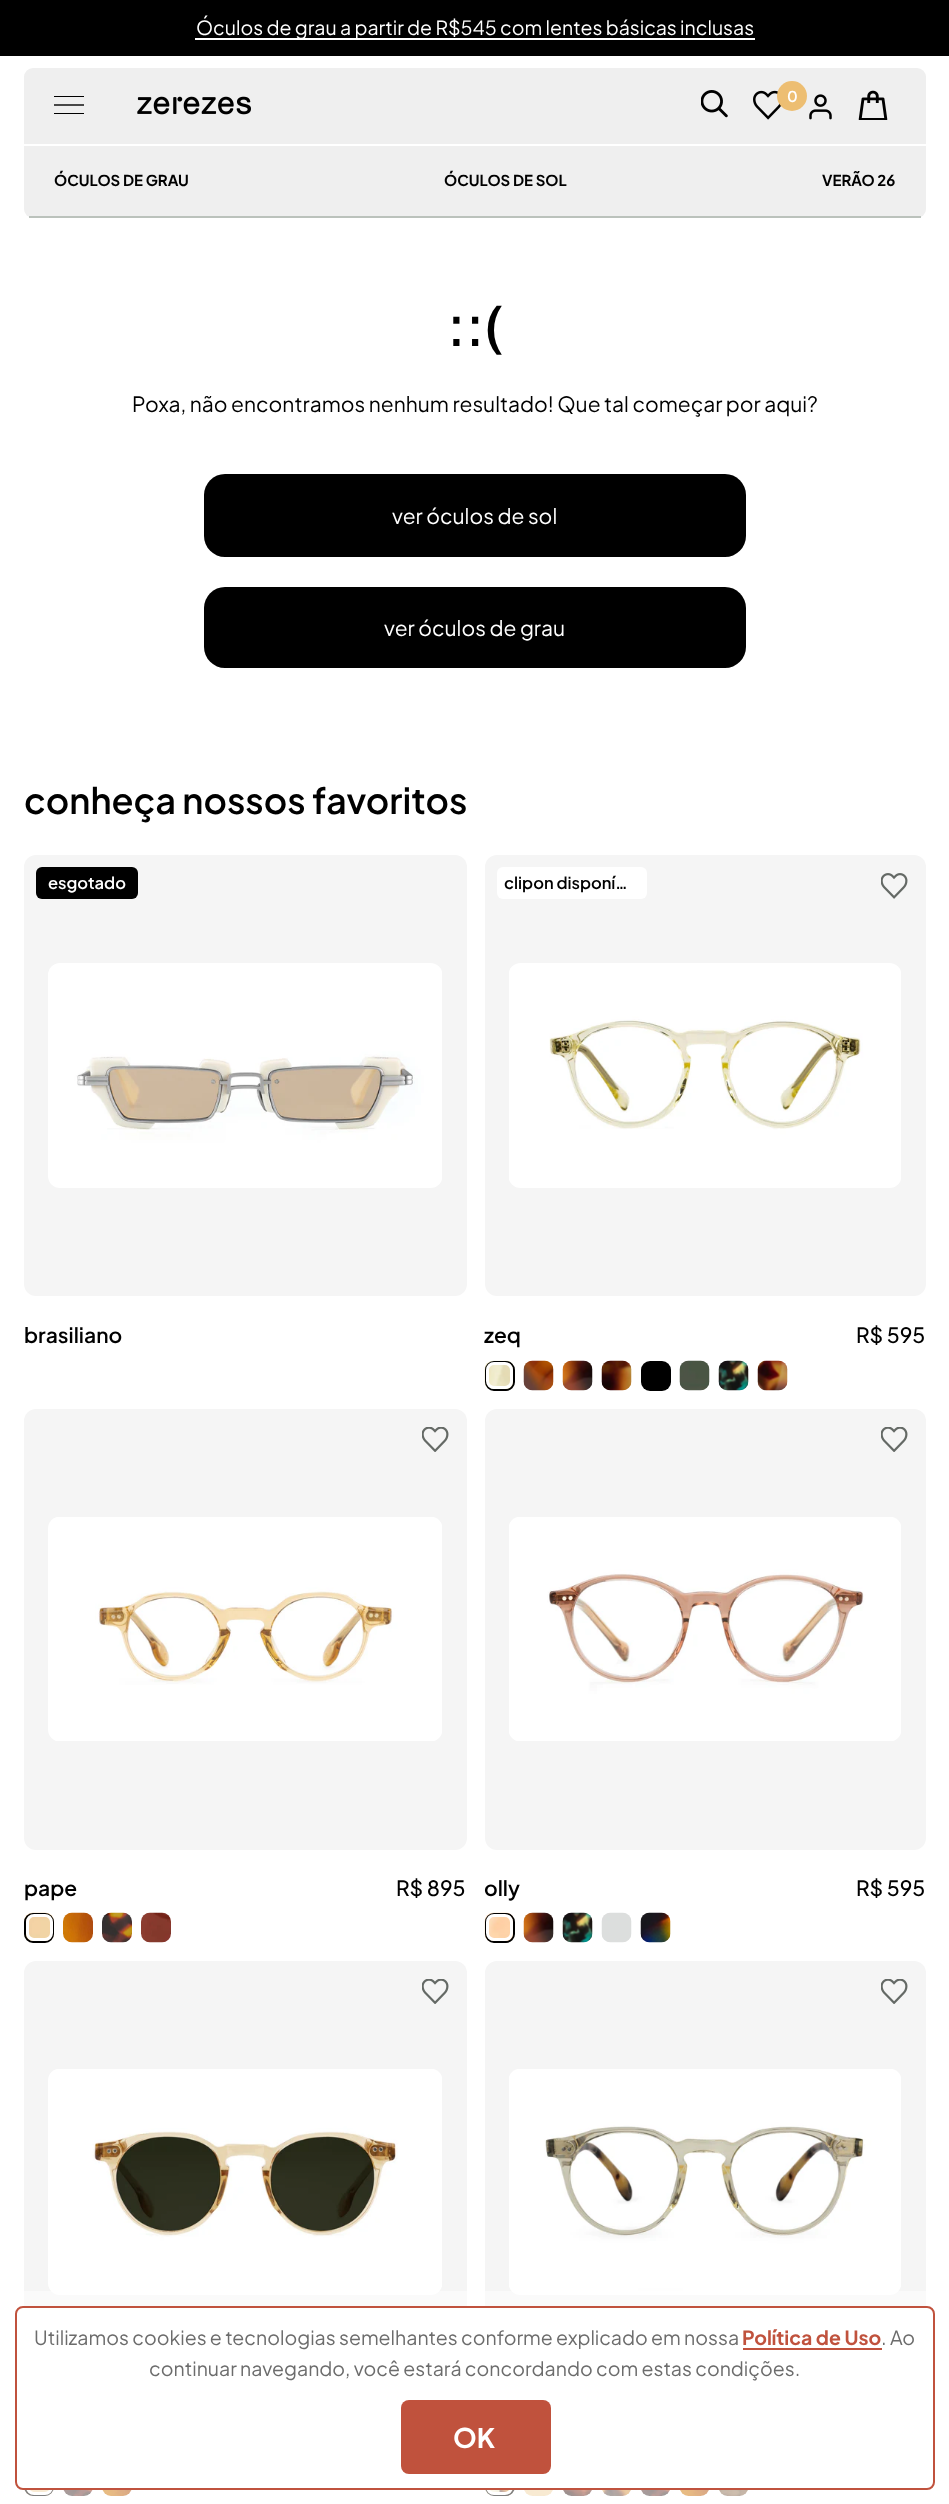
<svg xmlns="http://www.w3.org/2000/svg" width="949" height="2504">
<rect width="100%" height="100%" fill="#fff"/>
<rect width="949" height="56" fill="#000"/>
<rect x="195" y="38" width="560" height="2" fill="#fff"/>
<text x="196" y="35" style="font-family:Plus Jakarta Sans;font-size:19.5px;fill:#fff">Óculos de grau a partir de R$545 com lentes básicas inclusas</text>
<rect x="24" y="68" width="902" height="150" rx="9" fill="#efefef"/>
<rect x="29" y="216" width="892" height="2" fill="#bbc2bc"/>
<rect x="54" y="96" width="30" height="1" fill="#000"/>
<path d="M54 105h30" fill="none" stroke="#000" stroke-width="1.4"/>
<rect x="54" y="113" width="30" height="1" fill="#000"/>
<image x="137" y="96" width="114" height="19" href="media/1.png"/>
<image x="701" y="90" width="27" height="28" href="media/2.png"/>
<image x="753" y="90" width="28" height="30" href="media/3.png"/>
<circle cx="792" cy="96" r="15" fill="#edbe72"/>
<text x="787" y="102" style="font-family:Plus Jakarta Sans;font-size:15px;font-weight:600;fill:#fff">0</text>
<image x="809" y="94" width="23" height="26" href="media/4.png"/>
<image x="858" y="90" width="30" height="30" href="media/5.png"/>
<rect x="24" y="144" width="902" height="2" fill="#fff"/>
<text x="54" y="186" style="font-family:Plus Jakarta Sans;font-size:15px;font-weight:bold;fill:#000">ÓCULOS DE GRAU</text>
<text x="444" y="186" style="font-family:Plus Jakarta Sans;font-size:15px;font-weight:bold;fill:#000">ÓCULOS DE SOL</text>
<text x="822" y="186" style="font-family:Plus Jakarta Sans;font-size:15px;font-weight:bold;fill:#000">VERÃO 26</text>
<text x="447" y="346" style="font-family:Plus Jakarta Sans;font-size:54px;font-weight:600;fill:#000">::(</text>
<text x="132" y="412" style="font-family:Plus Jakarta Sans;font-size:21px;fill:#000">Poxa, não encontramos nenhum resultado! Que tal começar por aqui?</text>
<rect x="204" y="474" width="542" height="83" rx="21" fill="#000"/>
<text x="392" y="524" style="font-family:Plus Jakarta Sans;font-size:21px;fill:#fff">ver óculos de sol</text>
<rect x="204" y="587" width="542" height="81" rx="21" fill="#000"/>
<text x="384" y="636" style="font-family:Plus Jakarta Sans;font-size:21px;fill:#fff">ver óculos de grau</text>
<text x="24" y="814" style="font-family:Plus Jakarta Sans;font-size:36px;font-weight:600;fill:#000">conheça nossos favoritos</text>
<rect x="24" y="855" width="443" height="441" rx="12" fill="#f5f5f5"/>
<rect x="36" y="867" width="102" height="32" rx="6" fill="#000"/>
<text x="48" y="889" style="font-family:Plus Jakarta Sans;font-size:16.5px;font-weight:600;fill:#fff">esgotado</text>
<image x="48" y="963" width="394" height="225" href="media/6.png"/>
<text x="24" y="1343" style="font-family:Plus Jakarta Sans;font-size:21px;font-weight:600;fill:#000">brasiliano</text>
<rect x="485" y="855" width="441" height="441" rx="12" fill="#f5f5f5"/>
<rect x="497" y="867" width="150" height="32" rx="6" fill="#fff"/>
<text x="504" y="889" style="font-family:Plus Jakarta Sans;font-size:16.5px;font-weight:600;fill:#000">clipon disponí…</text>
<image x="881" y="873" width="27" height="26" href="media/7.png"/>
<image x="509" y="963" width="392" height="225" href="media/8.png"/>
<text x="484" y="1343" style="font-family:Plus Jakarta Sans;font-size:21px;font-weight:600;fill:#000">zeq</text>
<text x="856" y="1343" style="font-family:Plus Jakarta Sans;font-size:21px;font-weight:500;fill:#000">R$ 595</text>
<image x="484" y="1360" width="31" height="31" href="media/9.png"/>
<rect x="486" y="1362" width="28" height="28" rx="8" fill="none" stroke="#000" stroke-width="2"/>
<rect x="487.5" y="1363.5" width="24" height="24" rx="6.5" fill="none" stroke="#fff" stroke-width="3"/>
<image x="523" y="1360" width="31" height="31" href="media/10.png"/>
<image x="562" y="1360" width="31" height="31" href="media/11.png"/>
<image x="601" y="1360" width="31" height="31" href="media/12.png"/>
<rect x="641" y="1361" width="30" height="30" rx="9" fill="#000"/>
<image x="679" y="1360" width="31" height="31" href="media/13.png"/>
<image x="718" y="1360" width="31" height="31" href="media/14.png"/>
<image x="757" y="1360" width="31" height="31" href="media/15.png"/>
<rect x="24" y="1409" width="443" height="441" rx="12" fill="#f5f5f5"/>
<image x="422" y="1427" width="27" height="25" href="media/16.png"/>
<image x="48" y="1517" width="394" height="224" href="media/17.png"/>
<text x="24" y="1896" style="font-family:Plus Jakarta Sans;font-size:21px;font-weight:600;fill:#000">pape</text>
<text x="396" y="1896" style="font-family:Plus Jakarta Sans;font-size:21px;font-weight:500;fill:#000">R$ 895</text>
<image x="24" y="1912" width="30" height="31" href="media/18.png"/>
<rect x="25" y="1914" width="28" height="28" rx="8" fill="none" stroke="#000" stroke-width="2"/>
<rect x="27.5" y="1915.5" width="24" height="24" rx="6.5" fill="none" stroke="#fff" stroke-width="3"/>
<image x="63" y="1912" width="30" height="31" href="media/19.png"/>
<image x="102" y="1912" width="30" height="31" href="media/20.png"/>
<image x="141" y="1912" width="30" height="31" href="media/21.png"/>
<rect x="485" y="1409" width="441" height="441" rx="12" fill="#f5f5f5"/>
<image x="881" y="1427" width="27" height="25" href="media/16.png"/>
<image x="509" y="1517" width="392" height="224" href="media/22.png"/>
<text x="484" y="1896" style="font-family:Plus Jakarta Sans;font-size:21px;font-weight:600;fill:#000">olly</text>
<text x="856" y="1896" style="font-family:Plus Jakarta Sans;font-size:21px;font-weight:500;fill:#000">R$ 595</text>
<image x="484" y="1912" width="31" height="31" href="media/23.png"/>
<rect x="486" y="1914" width="28" height="28" rx="8" fill="none" stroke="#000" stroke-width="2"/>
<rect x="487.5" y="1915.5" width="24" height="24" rx="6.5" fill="none" stroke="#fff" stroke-width="3"/>
<image x="523" y="1912" width="31" height="31" href="media/11.png"/>
<image x="562" y="1912" width="31" height="31" href="media/14.png"/>
<image x="601" y="1912" width="31" height="31" href="media/24.png"/>
<image x="640" y="1912" width="31" height="31" href="media/25.png"/>
<rect x="24" y="1961" width="443" height="442" rx="12" fill="#f5f5f5"/>
<image x="422" y="1979" width="27" height="25" href="media/16.png"/>
<image x="48" y="2069" width="394" height="226" href="media/26.png"/>
<image x="24" y="2490" width="30" height="6" href="media/27.png"/>
<rect x="25" y="2467" width="28" height="28" rx="8" fill="none" stroke="#000" stroke-width="2"/>
<rect x="27.5" y="2469.5" width="24" height="24" rx="6.5" fill="none" stroke="#fff" stroke-width="3"/>
<image x="63" y="2490" width="30" height="6" href="media/28.png"/>
<image x="102" y="2490" width="30" height="6" href="media/29.png"/>
<rect x="485" y="1961" width="441" height="442" rx="12" fill="#f5f5f5"/>
<image x="881" y="1979" width="27" height="25" href="media/16.png"/>
<image x="509" y="2069" width="392" height="226" href="media/30.png"/>
<image x="485" y="2490" width="29" height="6" href="media/31.png"/>
<rect x="486" y="2467" width="28" height="28" rx="8" fill="none" stroke="#000" stroke-width="2"/>
<rect x="487.5" y="2469.5" width="24" height="24" rx="6.5" fill="none" stroke="#fff" stroke-width="3"/>
<image x="524" y="2490" width="29" height="6" href="media/32.png"/>
<image x="563" y="2490" width="29" height="6" href="media/33.png"/>
<image x="602" y="2490" width="29" height="6" href="media/34.png"/>
<image x="641" y="2490" width="29" height="6" href="media/35.png"/>
<image x="680" y="2490" width="29" height="6" href="media/36.png"/>
<image x="719" y="2490" width="29" height="6" href="media/37.png"/>
<rect x="24" y="2291" width="902" height="205" fill="#ffffff80"/>
<rect x="16" y="2307" width="918" height="182" rx="7" fill="#fff" stroke="#c0523d" stroke-width="2"/>
<text x="34" y="2345" style="font-family:Plus Jakarta Sans;font-size:19.5px;fill:#6c6c6c">Utilizamos cookies e tecnologias semelhantes conforme explicado em nossa</text>
<text x="742" y="2345" style="font-family:Plus Jakarta Sans;font-size:19.5px;font-weight:bold;fill:#c0523d">Política de Uso</text>
<rect x="743" y="2348" width="139" height="2" fill="#c0523d"/>
<text x="881" y="2345" style="font-family:Plus Jakarta Sans;font-size:19.5px;fill:#6c6c6c">. Ao</text>
<text x="149" y="2376" style="font-family:Plus Jakarta Sans;font-size:19.5px;fill:#6c6c6c">continuar navegando, você estará concordando com estas condições.</text>
<rect x="401" y="2400" width="150" height="74" rx="8" fill="#c0523d"/>
<text x="453" y="2448" style="font-family:Plus Jakarta Sans;font-size:27px;font-weight:bold;fill:#fff">OK</text>
</svg>
